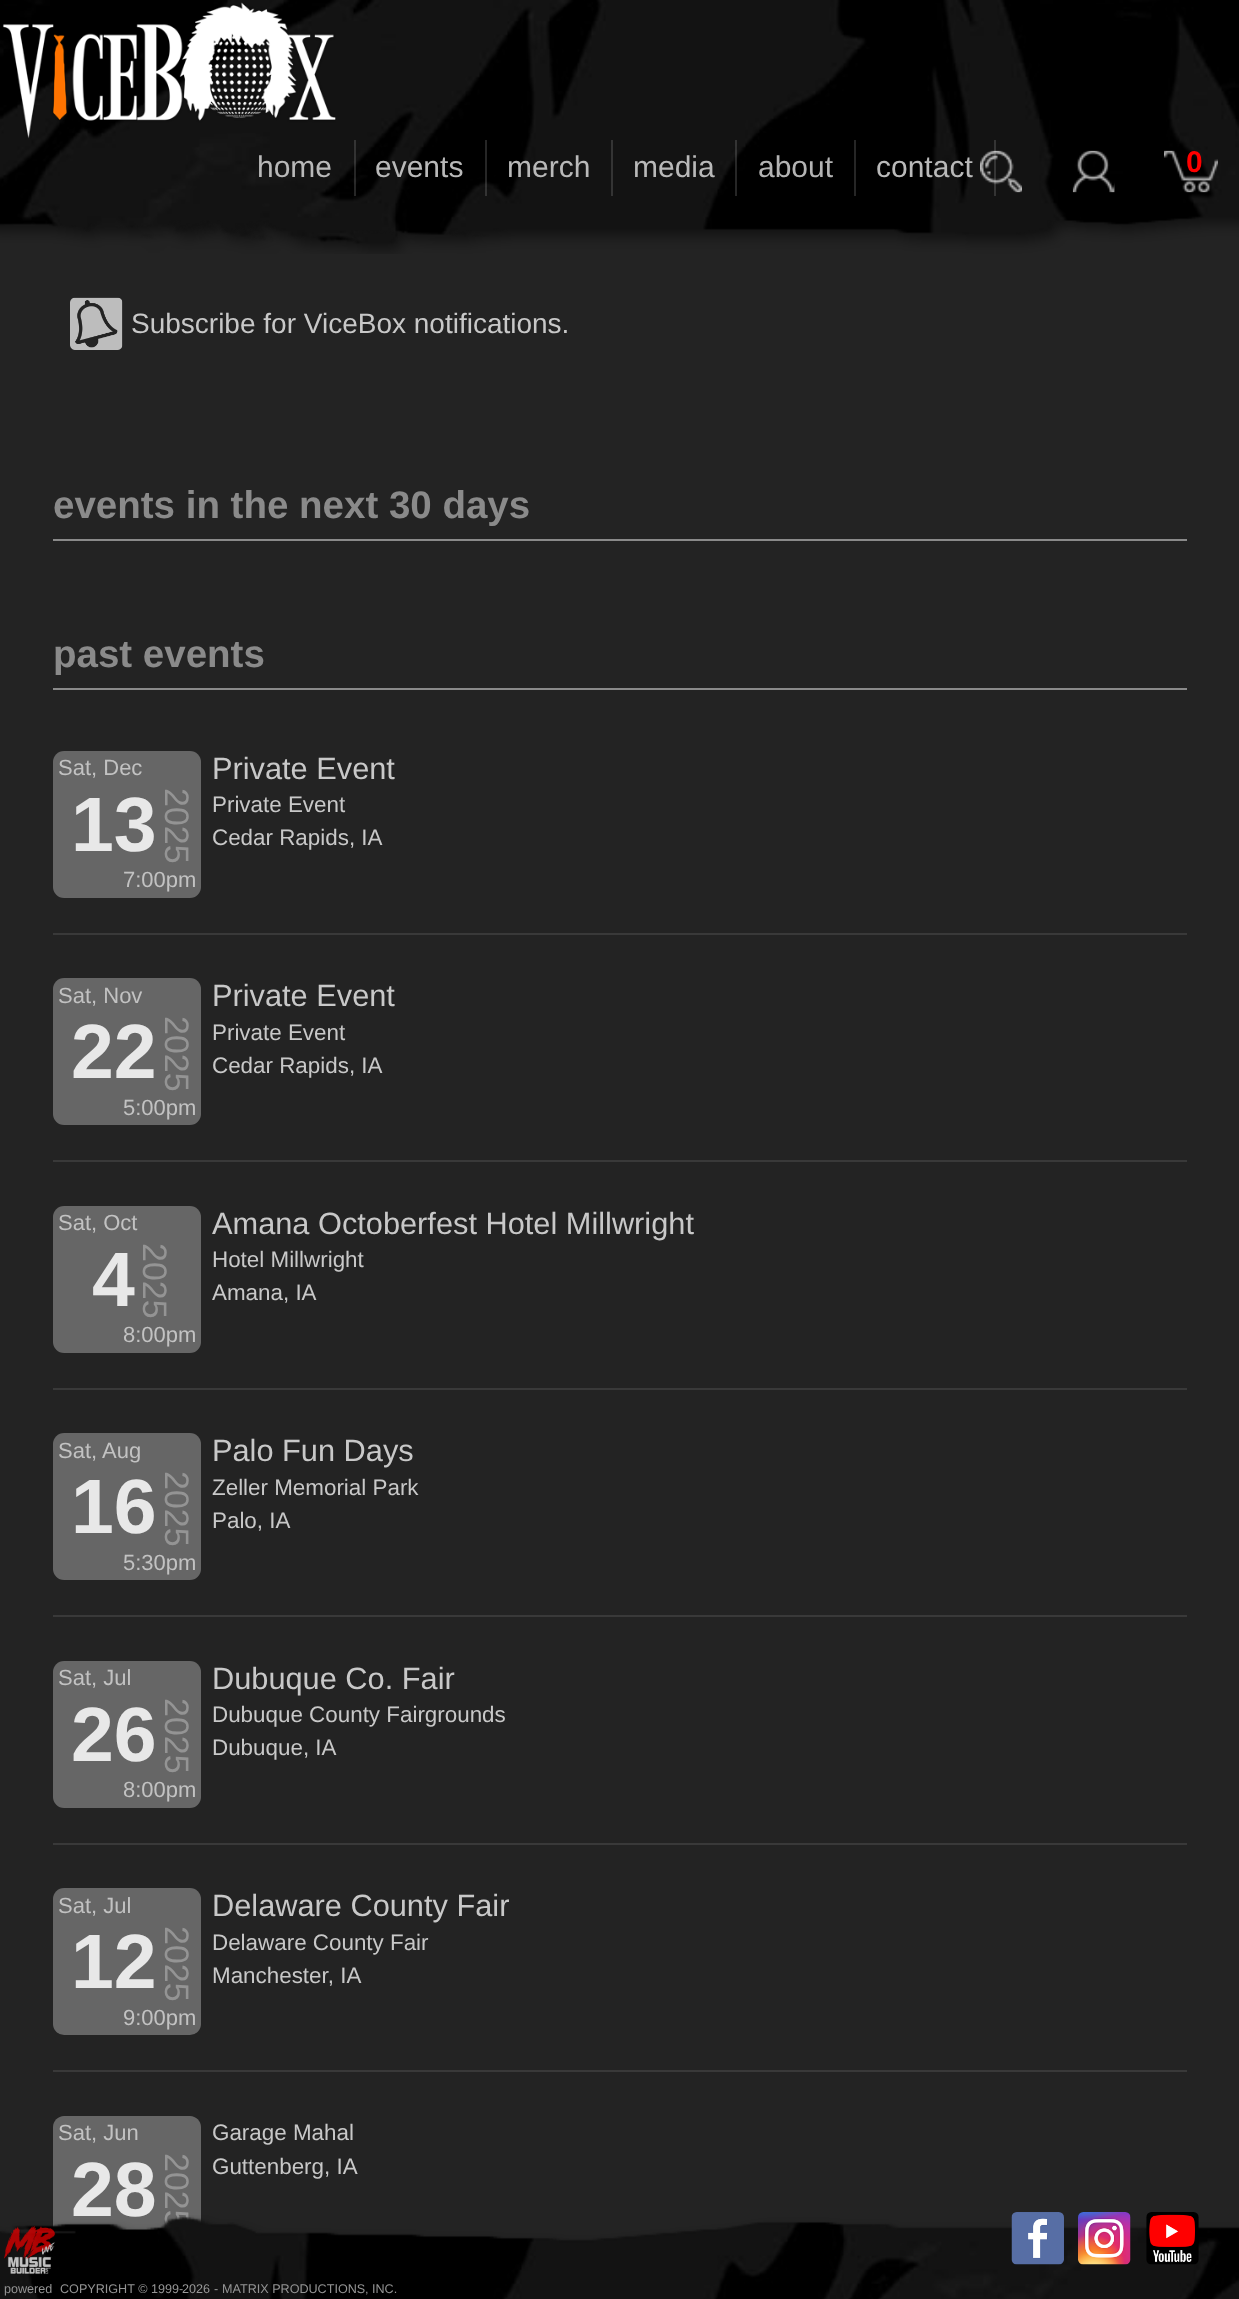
<svg xmlns="http://www.w3.org/2000/svg" width="1239" height="2299">
<rect width="100%" height="100%" fill="#232323"/>
<image x="0" y="0" width="1239" height="254" href="media/1.png"/>
<image x="2" y="2" width="334" height="137" href="media/2.png"/>
<rect x="354" y="140" width="2" height="56" fill="#96969640"/>
<text x="257" y="177" style="font-family:Liberation Sans;font-size:30px;fill:#b9b9b9">home</text>
<rect x="485" y="140" width="2" height="56" fill="#96969640"/>
<text x="375" y="177" style="font-family:Liberation Sans;font-size:30px;fill:#b9b9b9">events</text>
<rect x="611" y="140" width="2" height="56" fill="#343434"/>
<text x="507" y="177" style="font-family:Liberation Sans;font-size:30px;fill:#b9b9b9">merch</text>
<rect x="735" y="140" width="2" height="56" fill="#96969640"/>
<text x="633" y="177" style="font-family:Liberation Sans;font-size:30px;fill:#b9b9b9">media</text>
<rect x="854" y="140" width="2" height="56" fill="#262626"/>
<text x="758" y="177" style="font-family:Liberation Sans;font-size:30px;fill:#b3b3b3">about</text>
<rect x="994" y="140" width="2" height="56" fill="#343434"/>
<text x="876" y="177" style="font-family:Liberation Sans;font-size:30px;fill:#b9b9b9">contact</text>
<image x="980" y="150" width="42" height="43" href="media/3.png"/>
<image x="1072" y="150" width="43" height="43" href="media/4.png"/>
<image x="1164" y="150" width="54" height="43" href="media/5.png"/>
<text x="1186" y="172" style="font-family:Liberation Sans;font-size:30px;font-weight:bold;fill:#f00">0</text>
<image x="70" y="297" width="53" height="53" href="media/6.png"/>
<text x="131" y="333" style="font-family:Liberation Sans;font-size:28px;fill:#c8c8c8">Subscribe for ViceBox notifications.</text>
<rect x="53" y="539" width="1134" height="2" fill="#8a8a8a"/>
<text x="53" y="518" style="font-family:Liberation Sans;font-size:38.5px;font-weight:bold;fill:#8a8a8a">events in the next 30 days</text>
<rect x="53" y="688" width="1134" height="2" fill="#8a8a8a"/>
<text x="53" y="667" style="font-family:Liberation Sans;font-size:38.5px;font-weight:bold;fill:#8a8a8a">past events</text>
<rect x="53" y="933" width="1134" height="2" fill="#393939"/>
<rect x="53" y="751" width="148" height="147" rx="11" fill="#666"/>
<text x="58" y="775" style="font-family:Liberation Sans;font-size:22px;fill:#c2c2c2">Sat, Dec</text>
<text x="71" y="851" style="font-family:Liberation Sans;font-size:77px;font-weight:bold;fill:#e8e8e8">13</text>
<text x="165" y="788" transform="rotate(90 165 788)" style="font-family:Liberation Sans;font-size:34px;fill:#949494">2025</text>
<text x="123" y="887" style="font-family:Liberation Sans;font-size:22px;fill:#c2c2c2">7:00pm</text>
<text x="212" y="779" style="font-family:Liberation Sans;font-size:30.75px;fill:#c8c8c8">Private Event</text>
<text x="212" y="812" style="font-family:Liberation Sans;font-size:22.4px;fill:#c8c8c8">Private Event</text>
<text x="212" y="845" style="font-family:Liberation Sans;font-size:22.4px;fill:#c8c8c8">Cedar Rapids, IA</text>
<rect x="53" y="1160" width="1134" height="2" fill="#393939"/>
<rect x="53" y="978" width="148" height="147" rx="11" fill="#666"/>
<text x="58" y="1003" style="font-family:Liberation Sans;font-size:22px;fill:#c2c2c2">Sat, Nov</text>
<text x="71" y="1078" style="font-family:Liberation Sans;font-size:77px;font-weight:bold;fill:#e8e8e8">22</text>
<text x="165" y="1016" transform="rotate(90 165 1016)" style="font-family:Liberation Sans;font-size:34px;fill:#949494">2025</text>
<text x="123" y="1115" style="font-family:Liberation Sans;font-size:22px;fill:#c2c2c2">5:00pm</text>
<text x="212" y="1006" style="font-family:Liberation Sans;font-size:30.75px;fill:#c8c8c8">Private Event</text>
<text x="212" y="1040" style="font-family:Liberation Sans;font-size:22.4px;fill:#c8c8c8">Private Event</text>
<text x="212" y="1073" style="font-family:Liberation Sans;font-size:22.4px;fill:#c8c8c8">Cedar Rapids, IA</text>
<rect x="53" y="1388" width="1134" height="2" fill="#393939"/>
<rect x="53" y="1206" width="148" height="147" rx="11" fill="#666"/>
<text x="58" y="1230" style="font-family:Liberation Sans;font-size:22px;fill:#c2c2c2">Sat, Oct</text>
<text x="92" y="1306" style="font-family:Liberation Sans;font-size:77px;font-weight:bold;fill:#e8e8e8">4</text>
<text x="143" y="1243" transform="rotate(90 143 1243)" style="font-family:Liberation Sans;font-size:34px;fill:#949494">2025</text>
<text x="123" y="1342" style="font-family:Liberation Sans;font-size:22px;fill:#c2c2c2">8:00pm</text>
<text x="212" y="1234" style="font-family:Liberation Sans;font-size:30.75px;fill:#c8c8c8">Amana Octoberfest Hotel Millwright</text>
<text x="212" y="1267" style="font-family:Liberation Sans;font-size:22.4px;fill:#c8c8c8">Hotel Millwright</text>
<text x="212" y="1300" style="font-family:Liberation Sans;font-size:22.4px;fill:#c8c8c8">Amana, IA</text>
<rect x="53" y="1615" width="1134" height="2" fill="#393939"/>
<rect x="53" y="1433" width="148" height="147" rx="11" fill="#666"/>
<text x="58" y="1458" style="font-family:Liberation Sans;font-size:22px;fill:#c2c2c2">Sat, Aug</text>
<text x="71" y="1533" style="font-family:Liberation Sans;font-size:77px;font-weight:bold;fill:#e8e8e8">16</text>
<text x="165" y="1471" transform="rotate(90 165 1471)" style="font-family:Liberation Sans;font-size:34px;fill:#949494">2025</text>
<text x="123" y="1570" style="font-family:Liberation Sans;font-size:22px;fill:#c2c2c2">5:30pm</text>
<text x="212" y="1461" style="font-family:Liberation Sans;font-size:30.75px;fill:#c8c8c8">Palo Fun Days</text>
<text x="212" y="1495" style="font-family:Liberation Sans;font-size:22.4px;fill:#c8c8c8">Zeller Memorial Park</text>
<text x="212" y="1528" style="font-family:Liberation Sans;font-size:22.4px;fill:#c8c8c8">Palo, IA</text>
<rect x="53" y="1843" width="1134" height="2" fill="#393939"/>
<rect x="53" y="1661" width="148" height="147" rx="11" fill="#666"/>
<text x="58" y="1685" style="font-family:Liberation Sans;font-size:22px;fill:#c2c2c2">Sat, Jul</text>
<text x="71" y="1761" style="font-family:Liberation Sans;font-size:77px;font-weight:bold;fill:#e8e8e8">26</text>
<text x="165" y="1698" transform="rotate(90 165 1698)" style="font-family:Liberation Sans;font-size:34px;fill:#949494">2025</text>
<text x="123" y="1797" style="font-family:Liberation Sans;font-size:22px;fill:#c2c2c2">8:00pm</text>
<text x="212" y="1689" style="font-family:Liberation Sans;font-size:30.75px;fill:#c8c8c8">Dubuque Co. Fair</text>
<text x="212" y="1722" style="font-family:Liberation Sans;font-size:22.4px;fill:#c8c8c8">Dubuque County Fairgrounds</text>
<text x="212" y="1755" style="font-family:Liberation Sans;font-size:22.4px;fill:#c8c8c8">Dubuque, IA</text>
<rect x="53" y="2070" width="1134" height="2" fill="#393939"/>
<rect x="53" y="1888" width="148" height="147" rx="11" fill="#666"/>
<text x="58" y="1913" style="font-family:Liberation Sans;font-size:22px;fill:#c2c2c2">Sat, Jul</text>
<text x="71" y="1988" style="font-family:Liberation Sans;font-size:77px;font-weight:bold;fill:#e8e8e8">12</text>
<text x="165" y="1926" transform="rotate(90 165 1926)" style="font-family:Liberation Sans;font-size:34px;fill:#949494">2025</text>
<text x="123" y="2025" style="font-family:Liberation Sans;font-size:22px;fill:#c2c2c2">9:00pm</text>
<text x="212" y="1916" style="font-family:Liberation Sans;font-size:30.75px;fill:#c8c8c8">Delaware County Fair</text>
<text x="212" y="1950" style="font-family:Liberation Sans;font-size:22.4px;fill:#c8c8c8">Delaware County Fair</text>
<text x="212" y="1983" style="font-family:Liberation Sans;font-size:22.4px;fill:#c8c8c8">Manchester, IA</text>
<path d="M64 2116h126c6 0 11 5 11 11v103h-148v-103c0-6 5-11 11-11z" fill="#666"/>
<text x="58" y="2140" style="font-family:Liberation Sans;font-size:22px;fill:#c2c2c2">Sat, Jun</text>
<text x="71" y="2216" style="font-family:Liberation Sans;font-size:77px;font-weight:bold;fill:#e8e8e8">28</text>
<text x="165" y="2153" transform="rotate(90 165 2153)" style="font-family:Liberation Sans;font-size:34px;fill:#949494">2025</text>
<text x="212" y="2140" style="font-family:Liberation Sans;font-size:22.4px;fill:#c8c8c8">Garage Mahal</text>
<text x="212" y="2174" style="font-family:Liberation Sans;font-size:22.4px;fill:#c8c8c8">Guttenberg, IA</text>
<image x="0" y="2215" width="1239" height="84" href="media/7.png"/>
<image x="1011" y="2212" width="53" height="53" href="media/8.png"/>
<image x="1078" y="2212" width="53" height="53" href="media/9.png"/>
<image x="1146" y="2212" width="53" height="53" href="media/10.png"/>
<image x="4" y="2226" width="52" height="49" href="media/11.png"/>
<text x="4" y="2293" style="font-family:Liberation Sans;font-size:12.6px;fill:#949494">powered</text>
<text x="60" y="2293" style="font-family:Liberation Sans;font-size:12.6px;fill:#949494">COPYRIGHT © 1999-</text>
<text x="182" y="2293" style="font-family:Liberation Sans;font-size:12.6px;fill:#9a9a9a">2026</text>
<text x="214" y="2293" style="font-family:Liberation Sans;font-size:12.6px;fill:#9a9a9a">-</text>
<text x="222" y="2293" style="font-family:Liberation Sans;font-size:12.6px;fill:#949494">MATRIX PRODUCTIONS</text>
<text x="365" y="2293" style="font-family:Liberation Sans;font-size:12.6px;fill:#949494">, INC.</text>
</svg>
